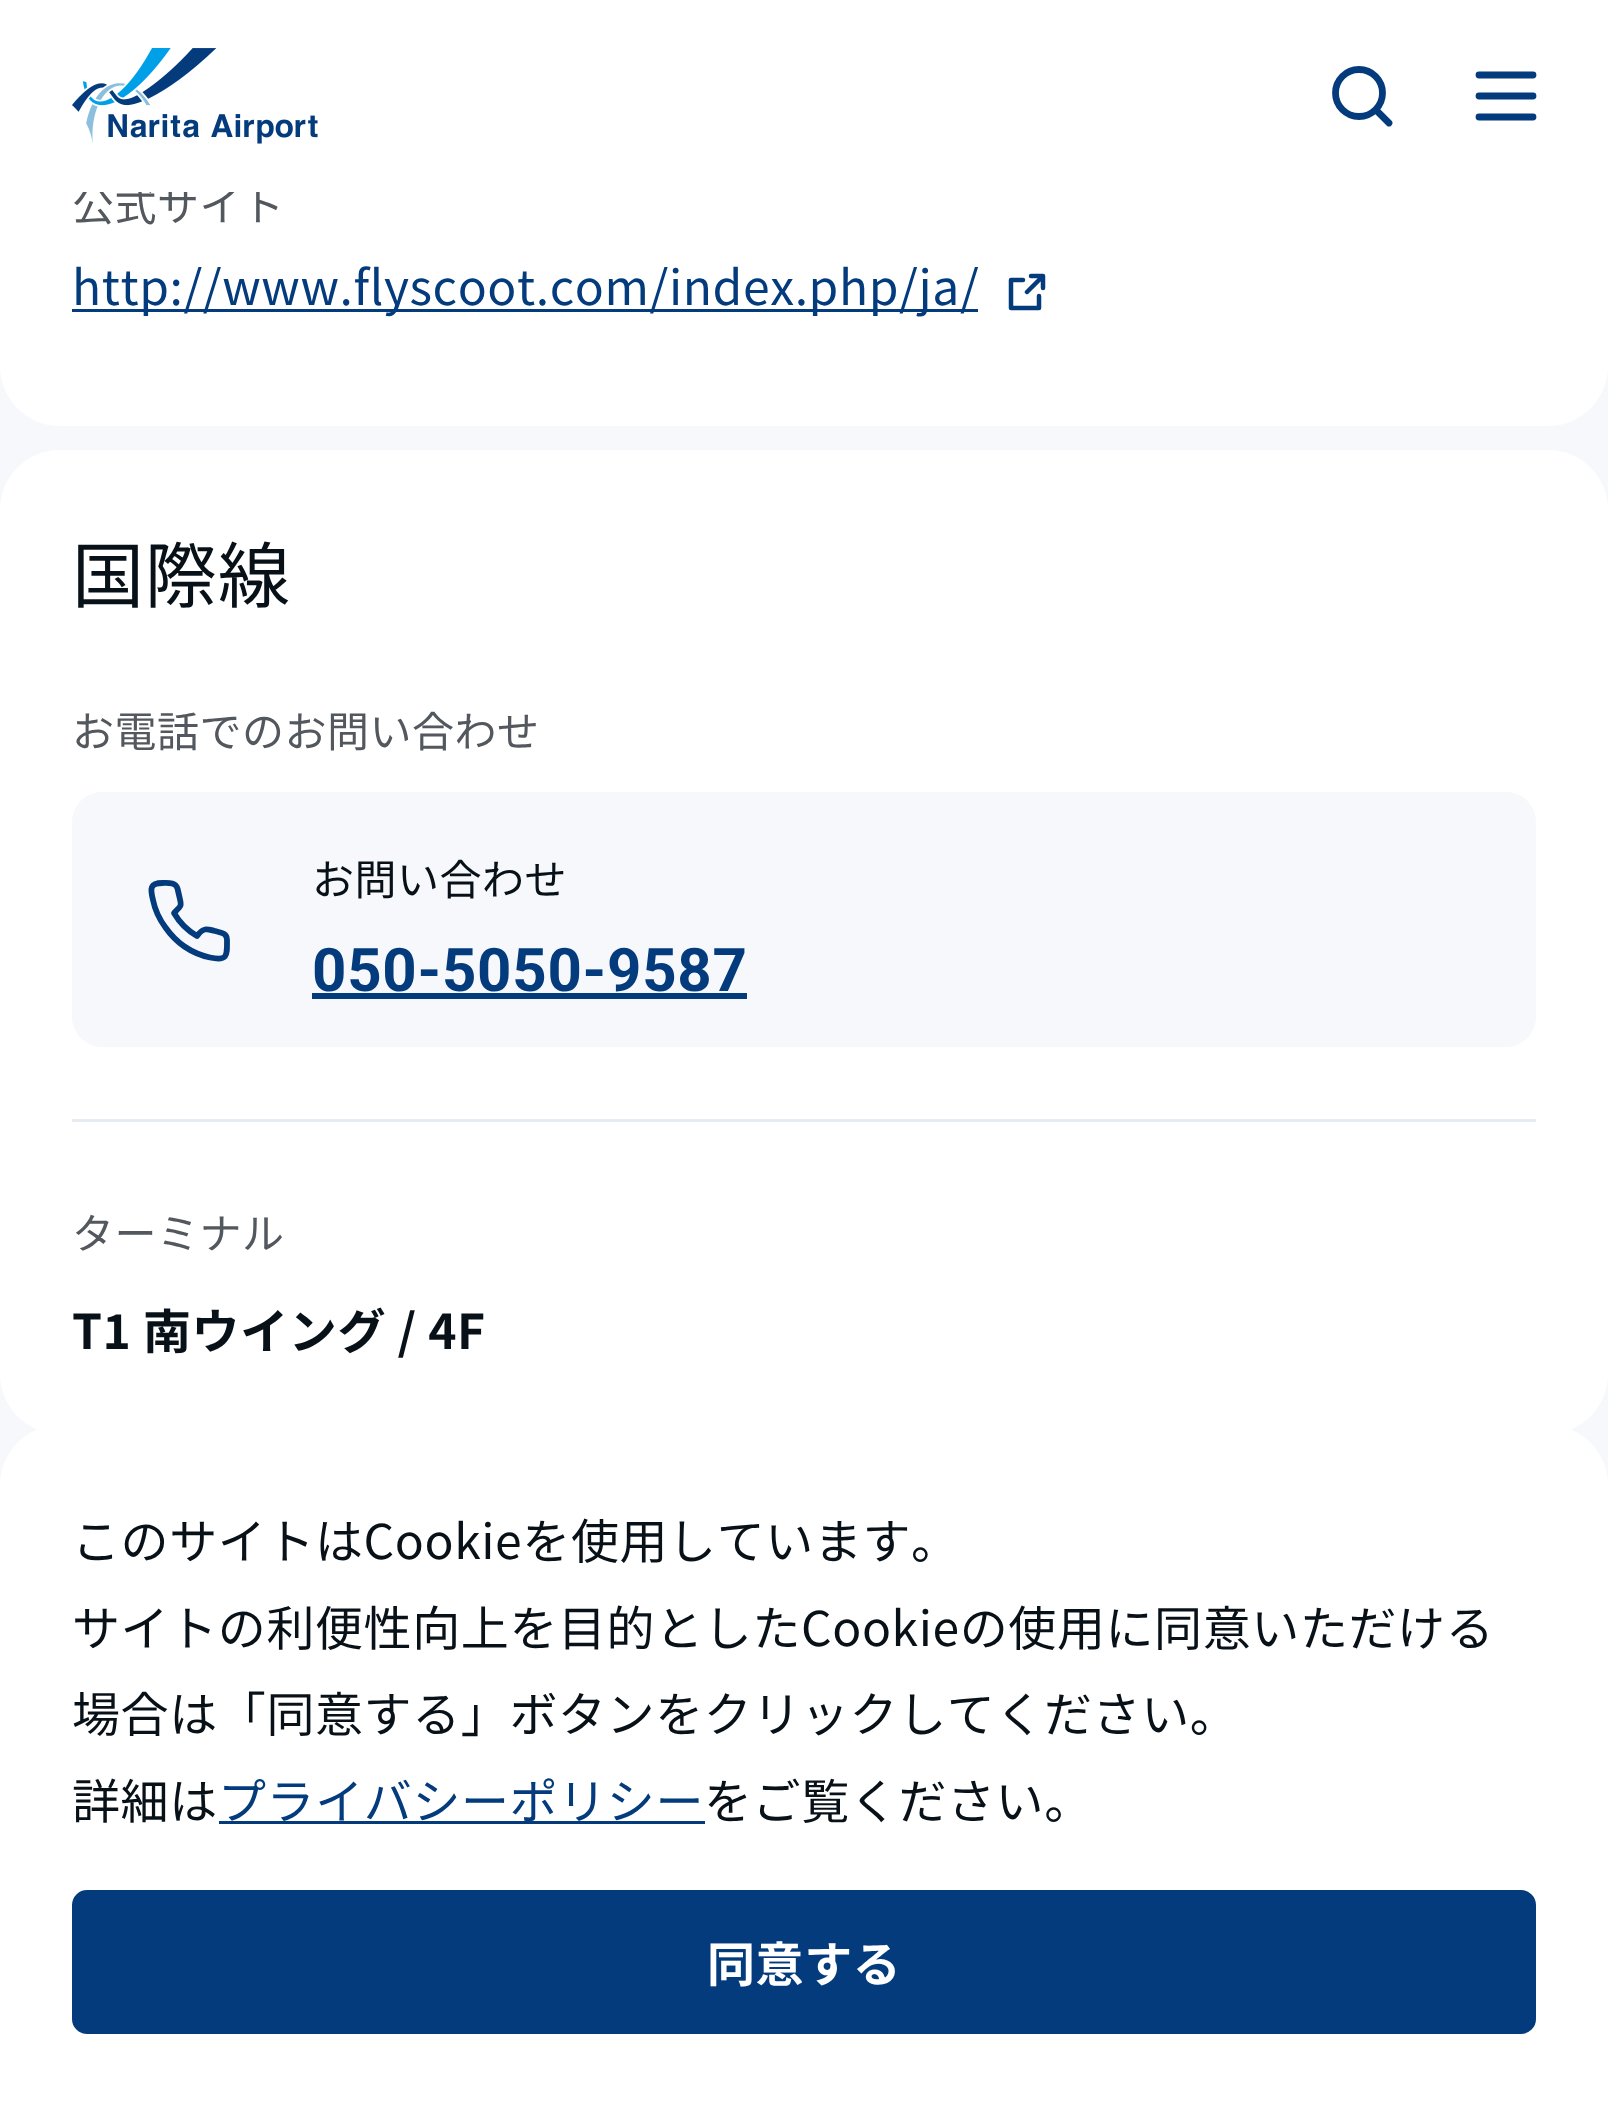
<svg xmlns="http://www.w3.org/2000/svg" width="1608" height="2106">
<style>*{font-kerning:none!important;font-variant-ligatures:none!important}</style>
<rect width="100%" height="100%" fill="#f6f8fb"/>
<rect y="-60" width="1608" height="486" rx="60" fill="#fff"/>
<text x="72" y="221" style="font-family:Noto Sans JP;font-size:42px;letter-spacing:0.5px;fill:#53585e">公式サイト</text>
<rect x="83" y="185" width="177" height="7" fill="#fff"/>
<image x="72" y="48" width="246" height="96" href="media/1.png"/>
<path d="M1377 111l12 12" fill="none" stroke="#033b7d" stroke-width="6.8" stroke-linecap="round"/>
<circle cx="1359" cy="93" r="23.5" fill="none" stroke="#033b7d" stroke-width="6.8"/>
<path d="M1479 75h54m-54 21h54m-54 21h54" fill="none" stroke="#033b7d" stroke-width="6.8" stroke-linecap="round" stroke-linejoin="round"/>
<rect x="72" y="309" width="906" height="3" fill="#033b7d"/>
<text x="72" y="305" style="font-family:Noto Sans JP;font-size:48px;letter-spacing:0.6px;fill:#033b7d">http://www.flyscoot.com/index.php/ja/</text>
<path d="M1023 280h-12v28h28v-12m-12-4l14-14m-10-2h12v12" fill="none" stroke="#033b7d" stroke-width="4.5" stroke-linecap="round" stroke-linejoin="round"/>
<rect y="450" width="1608" height="984" rx="60" fill="#fff"/>
<text x="72" y="602" style="font-family:Noto Sans JP;font-size:72px;letter-spacing:1px;fill:#081018">国際線</text>
<text x="72" y="747" style="font-family:Noto Sans JP;font-size:42px;letter-spacing:0.5px;fill:#53585e">お電話でのお問い合わせ</text>
<rect x="72" y="792" width="1464" height="255" rx="30" fill="#f6f8fb"/>
<path d="M227 940c0 15.5 1 21.5-17 17.5c-18-4-34-15-44.5-30c-6-8-10.5-17.5-12.5-27.5c-3-11.5-3-17 9.5-17c5.5 0 13-1 15 5.5l1.5 6.5c2.5 11.5 3.5 9.5-5 18c5.5 9.5 13.5 17.5 23 23c2-2.5 4.5-6 8-6.5c3.5-1 6.5 1 10 1.5c5 1.5 12 1.5 12 9z" fill="none" stroke="#033b7d" stroke-width="5.8" stroke-linecap="round" stroke-linejoin="round"/>
<text x="312" y="895" style="font-family:Noto Sans JP;font-size:42px;letter-spacing:0.5px;fill:#081018">お問い合わせ</text>
<text x="312" y="991" style="font-family:Roboto;font-size:60px;font-weight:bold;letter-spacing:0.75px;fill:#033b7d">050-5050-9587</text>
<rect x="312" y="993" width="435" height="6" fill="#033b7d"/>
<rect x="72" y="1119" width="1464" height="3" fill="#e6ebf2"/>
<text x="72" y="1249" style="font-family:Noto Sans JP;font-size:42px;letter-spacing:0.5px;fill:#53585e">ターミナル</text>
<text x="72" y="1349" style="font-family:Noto Sans JP;font-size:48px;font-weight:bold;letter-spacing:0.6px;fill:#081018">T1 南ウイング / 4F</text>
<path d="M60 1425h1488c33 0 60 27 60 60v621h-1608v-621c0-33 27-60 60-60z" fill="#fff"/>
<text x="72" y="1559" style="font-family:Noto Sans JP;font-size:48px;letter-spacing:0.6px;fill:#081018">このサイトはCookieを使用しています。</text>
<text x="72" y="1646" style="font-family:Noto Sans JP;font-size:48px;letter-spacing:0.6px;fill:#081018">サイトの利便性向上を目的としたCookieの使用に同意いただける</text>
<text x="72" y="1732" style="font-family:Noto Sans JP;font-size:48px;letter-spacing:0.6px;fill:#081018">場合は「同意する」ボタンをクリックしてください。</text>
<text x="72" y="1819" style="font-family:Noto Sans JP;font-size:48px;letter-spacing:0.6px;fill:#081018">詳細は</text>
<rect x="219" y="1821" width="486" height="3" fill="#033b7d"/>
<text x="218" y="1819" style="font-family:Noto Sans JP;font-size:48px;letter-spacing:0.6px;fill:#033b7d">プライバシーポリシー</text>
<text x="704" y="1819" style="font-family:Noto Sans JP;font-size:48px;letter-spacing:0.6px;fill:#081018">をご覧ください。</text>
<rect x="73.5" y="1891.5" width="1461" height="141" rx="13.5" fill="#033b7d" stroke="#033b7d" stroke-width="3"/>
<text x="707" y="1982" style="font-family:Noto Sans JP;font-size:48px;font-weight:bold;letter-spacing:0.6px;fill:#fff">同意する</text>
</svg>
